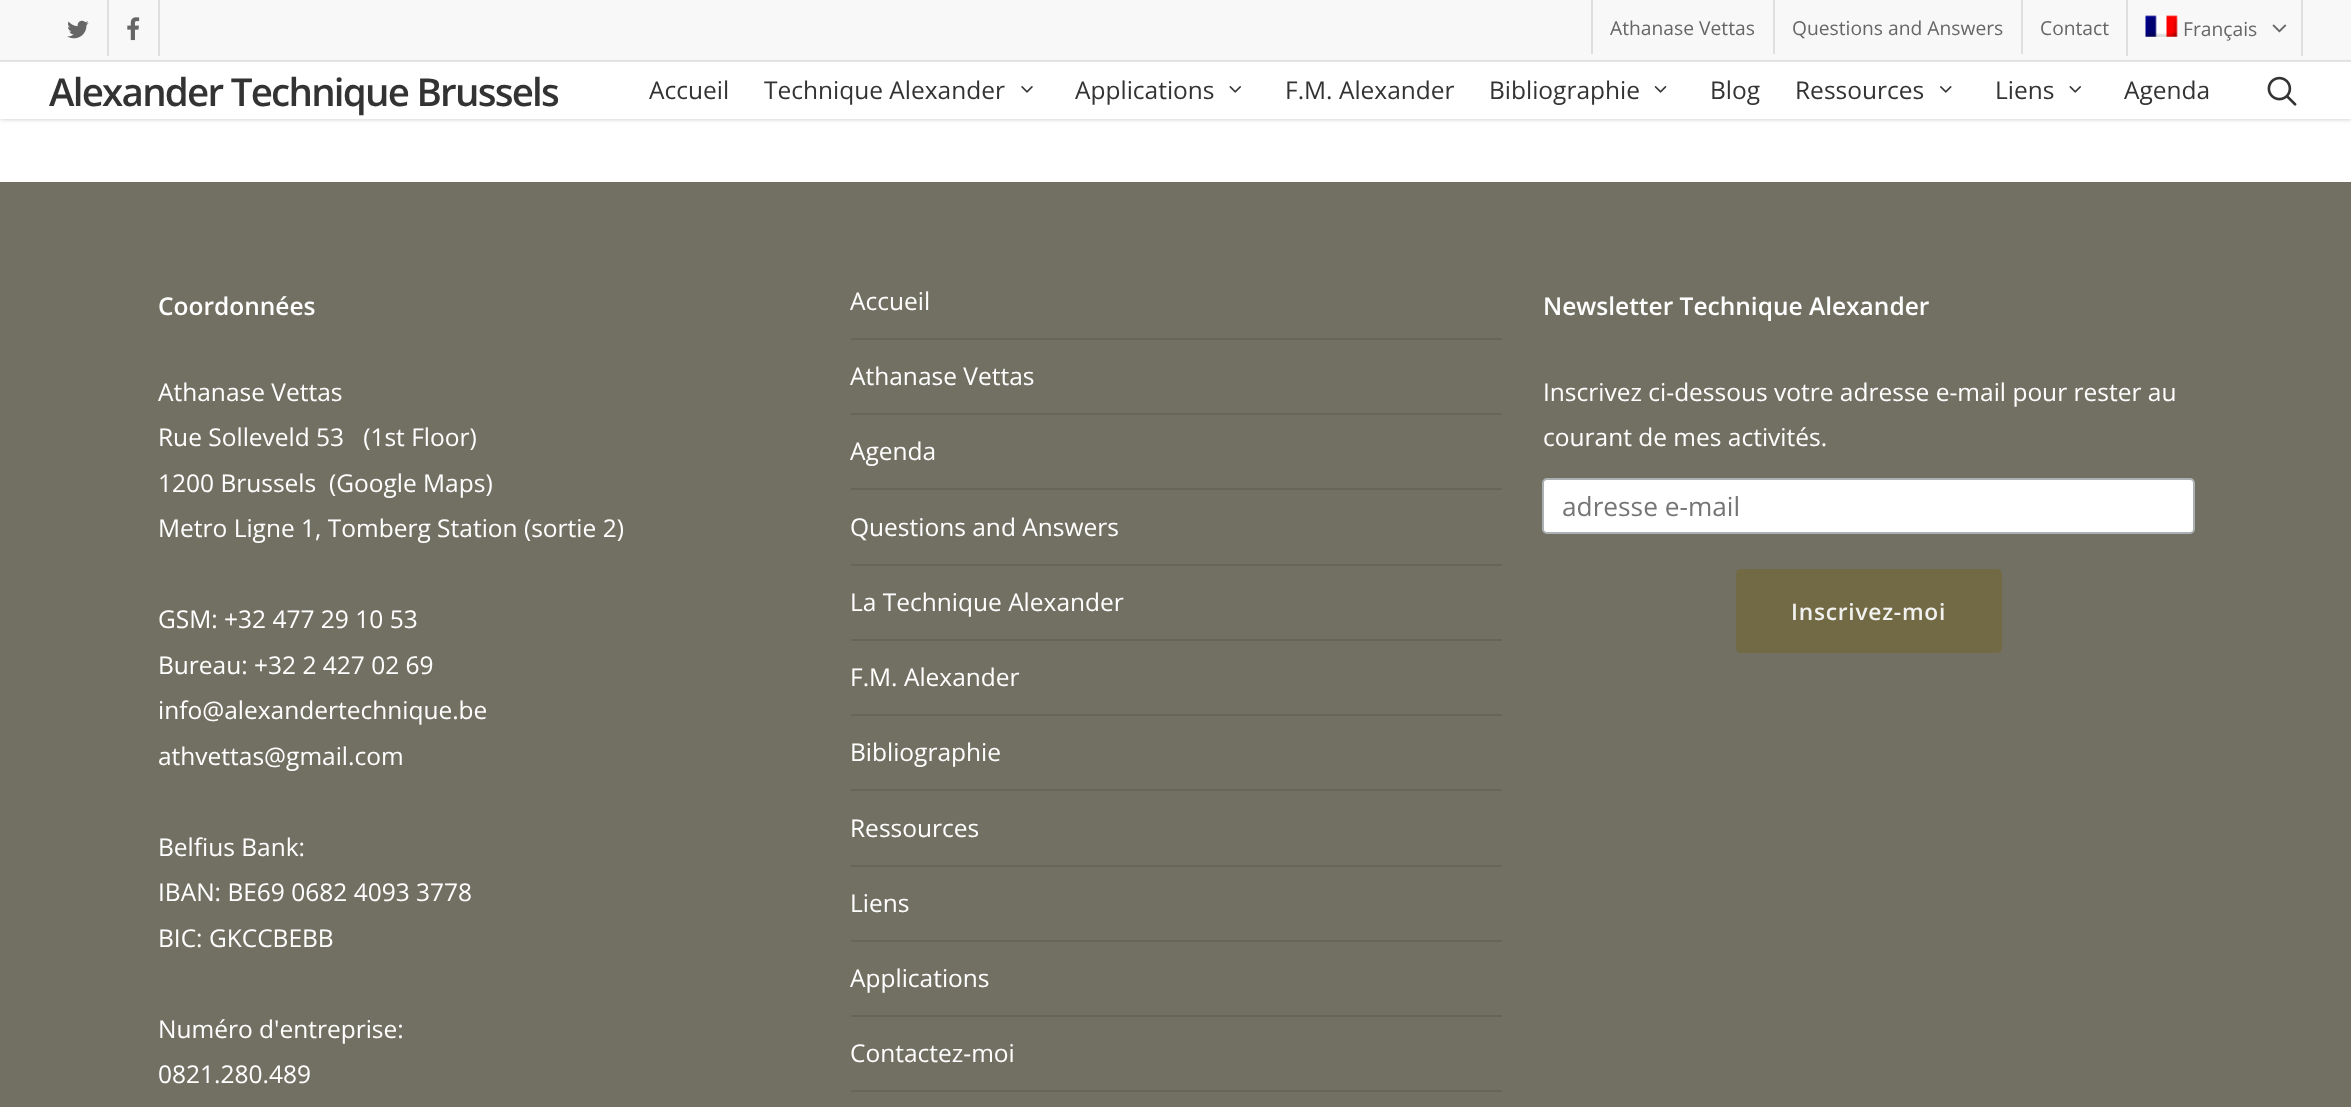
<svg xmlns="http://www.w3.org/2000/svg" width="2351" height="1107">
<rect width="100%" height="100%" fill="#fff"/>
<rect width="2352" height="119" fill="#00000038" filter="blur(2.5px)"/>
<rect y="62" width="2351" height="57" fill="#fff"/>
<rect y="61" width="2351" height="1" fill="#e6e6e6"/>
<rect width="2351" height="60" fill="#f8f8f8"/>
<rect y="60" width="2351" height="1" fill="#dfdfdf"/>
<image x="67" y="20" width="22" height="19" href="media/1.png"/>
<rect x="158" width="2" height="56" fill="#dfdfdf"/>
<rect x="107" width="2" height="56" fill="#dfdfdf"/>
<image x="127" y="17" width="13" height="24" href="media/2.png"/>
<rect x="1591" width="2" height="54" fill="#dfdfdf"/>
<text x="1610" y="35" style="font-family:Open Sans;font-size:19.25px;fill:#666">Athanase Vettas</text>
<rect x="1773" width="2" height="54" fill="#dfdfdf"/>
<text x="1792" y="35" style="font-family:Open Sans;font-size:19.25px;fill:#666">Questions and Answers</text>
<rect x="2021" width="2" height="54" fill="#dfdfdf"/>
<text x="2040" y="35" style="font-family:Open Sans;font-size:19.25px;fill:#666">Contact</text>
<rect x="2301" width="2" height="56" fill="#dfdfdf"/>
<rect x="2126" width="2" height="56" fill="#dfdfdf"/>
<image x="2145" y="15" width="33" height="22" href="media/3.png"/>
<text x="2183" y="36" style="font-family:Open Sans;font-size:19.25px;fill:#666">Français</text>
<image x="2272" y="24" width="15" height="9" href="media/4.png"/>
<text x="49" y="106" style="font-family:Open Sans;font-size:38.5px;font-weight:600;letter-spacing:-1.75px;fill:#333">Alexander Technique Brussels</text>
<text x="649" y="99" style="font-family:Open Sans;font-size:24.5px;fill:#333">Accueil</text>
<text x="764" y="99" style="font-family:Open Sans;font-size:24.5px;fill:#333">Technique Alexander</text>
<image x="1021" y="86" width="12" height="7" href="media/5.png"/>
<text x="1075" y="99" style="font-family:Open Sans;font-size:24.5px;fill:#333">Applications</text>
<image x="1229" y="86" width="12" height="7" href="media/6.png"/>
<text x="1285" y="99" style="font-family:Open Sans;font-size:24.5px;fill:#333">F.M. Alexander</text>
<text x="1489" y="99" style="font-family:Open Sans;font-size:24.5px;fill:#333">Bibliographie</text>
<image x="1654" y="86" width="13" height="7" href="media/7.png"/>
<text x="1710" y="99" style="font-family:Open Sans;font-size:24.5px;fill:#333">Blog</text>
<text x="1795" y="99" style="font-family:Open Sans;font-size:24.5px;fill:#333">Ressources</text>
<image x="1940" y="86" width="12" height="7" href="media/8.png"/>
<text x="1995" y="99" style="font-family:Open Sans;font-size:24.5px;fill:#333">Liens</text>
<image x="2069" y="86" width="12" height="7" href="media/6.png"/>
<text x="2124" y="99" style="font-family:Open Sans;font-size:24.5px;fill:#333">Agenda</text>
<image x="2267" y="76" width="30" height="30" href="media/9.png"/>
<rect y="182" width="2351" height="925" fill="#727063"/>
<text x="158" y="315" style="font-family:Open Sans;font-size:24.5px;font-weight:600;fill:#fff">Coordonnées</text>
<text x="158" y="401" style="font-family:Open Sans;font-size:24.5px;fill:#fff">Athanase Vettas</text>
<text x="158" y="446" style="font-family:Open Sans;font-size:24.5px;fill:#fff" xml:space="preserve">Rue Solleveld 53   (1st Floor)</text>
<text x="158" y="492" style="font-family:Open Sans;font-size:24.5px;fill:#fff" xml:space="preserve">1200 Brussels  (Google Maps)</text>
<text x="158" y="537" style="font-family:Open Sans;font-size:24.5px;fill:#fff">Metro Ligne 1, Tomberg Station (sortie 2)</text>
<text x="158" y="628" style="font-family:Open Sans;font-size:24.5px;fill:#fff">GSM: +32 477 29 10 53</text>
<text x="158" y="674" style="font-family:Open Sans;font-size:24.5px;fill:#fff">Bureau: +32 2 427 02 69</text>
<text x="158" y="719" style="font-family:Open Sans;font-size:24.5px;fill:#fff">info@alexandertechnique.be</text>
<text x="158" y="765" style="font-family:Open Sans;font-size:24.5px;fill:#fff">athvettas@gmail.com</text>
<text x="158" y="856" style="font-family:Open Sans;font-size:24.5px;fill:#fff">Belfius Bank:</text>
<text x="158" y="901" style="font-family:Open Sans;font-size:24.5px;fill:#fff">IBAN: BE69 0682 4093 3778</text>
<text x="158" y="947" style="font-family:Open Sans;font-size:24.5px;fill:#fff">BIC: GKCCBEBB</text>
<text x="158" y="1038" style="font-family:Open Sans;font-size:24.5px;fill:#fff">Numéro d'entreprise:</text>
<text x="158" y="1083" style="font-family:Open Sans;font-size:24.5px;fill:#fff">0821.280.489</text>
<rect x="851" y="338" width="651" height="2" fill="#676559"/>
<text x="850" y="310" style="font-family:Open Sans;font-size:24.5px;fill:#fff">Accueil</text>
<rect x="851" y="413" width="651" height="2" fill="#676559"/>
<text x="850" y="385" style="font-family:Open Sans;font-size:24.5px;fill:#fff">Athanase Vettas</text>
<rect x="851" y="488" width="651" height="2" fill="#676559"/>
<text x="850" y="460" style="font-family:Open Sans;font-size:24.5px;fill:#fff">Agenda</text>
<rect x="851" y="564" width="651" height="2" fill="#676559"/>
<text x="850" y="536" style="font-family:Open Sans;font-size:24.5px;fill:#fff">Questions and Answers</text>
<rect x="851" y="639" width="651" height="2" fill="#676559"/>
<text x="850" y="611" style="font-family:Open Sans;font-size:24.5px;fill:#fff">La Technique Alexander</text>
<rect x="851" y="714" width="651" height="2" fill="#676559"/>
<text x="850" y="686" style="font-family:Open Sans;font-size:24.5px;fill:#fff">F.M. Alexander</text>
<rect x="851" y="789" width="651" height="2" fill="#676559"/>
<text x="850" y="761" style="font-family:Open Sans;font-size:24.5px;fill:#fff">Bibliographie</text>
<rect x="851" y="865" width="651" height="2" fill="#676559"/>
<text x="850" y="837" style="font-family:Open Sans;font-size:24.5px;fill:#fff">Ressources</text>
<rect x="851" y="940" width="651" height="2" fill="#676559"/>
<text x="850" y="912" style="font-family:Open Sans;font-size:24.5px;fill:#fff">Liens</text>
<rect x="851" y="1015" width="651" height="2" fill="#676559"/>
<text x="850" y="987" style="font-family:Open Sans;font-size:24.5px;fill:#fff">Applications</text>
<rect x="851" y="1090" width="651" height="2" fill="#676559"/>
<text x="850" y="1062" style="font-family:Open Sans;font-size:24.5px;fill:#fff">Contactez-moi</text>
<text x="1543" y="315" style="font-family:Open Sans;font-size:24.5px;font-weight:600;fill:#fff">Newsletter Technique Alexander</text>
<text x="1543" y="401" style="font-family:Open Sans;font-size:24.5px;fill:#fff">Inscrivez ci-dessous votre adresse e-mail pour rester au</text>
<text x="1543" y="446" style="font-family:Open Sans;font-size:24.5px;fill:#fff">courant de mes activités.</text>
<rect x="1543" y="479" width="651" height="54" rx="4" fill="#fff" stroke="#abb0b2" stroke-width="2"/>
<text x="1562" y="516" style="font-family:Open Sans;font-size:26.25px;fill:#757575">adresse e-mail</text>
<rect x="1736" y="569" width="266" height="84" rx="5" fill="#726a44"/>
<text x="1791" y="620" style="font-family:Open Sans;font-size:22.75px;font-weight:600;letter-spacing:0.75px;fill:#f1f1ef">Inscrivez-moi</text>
</svg>
